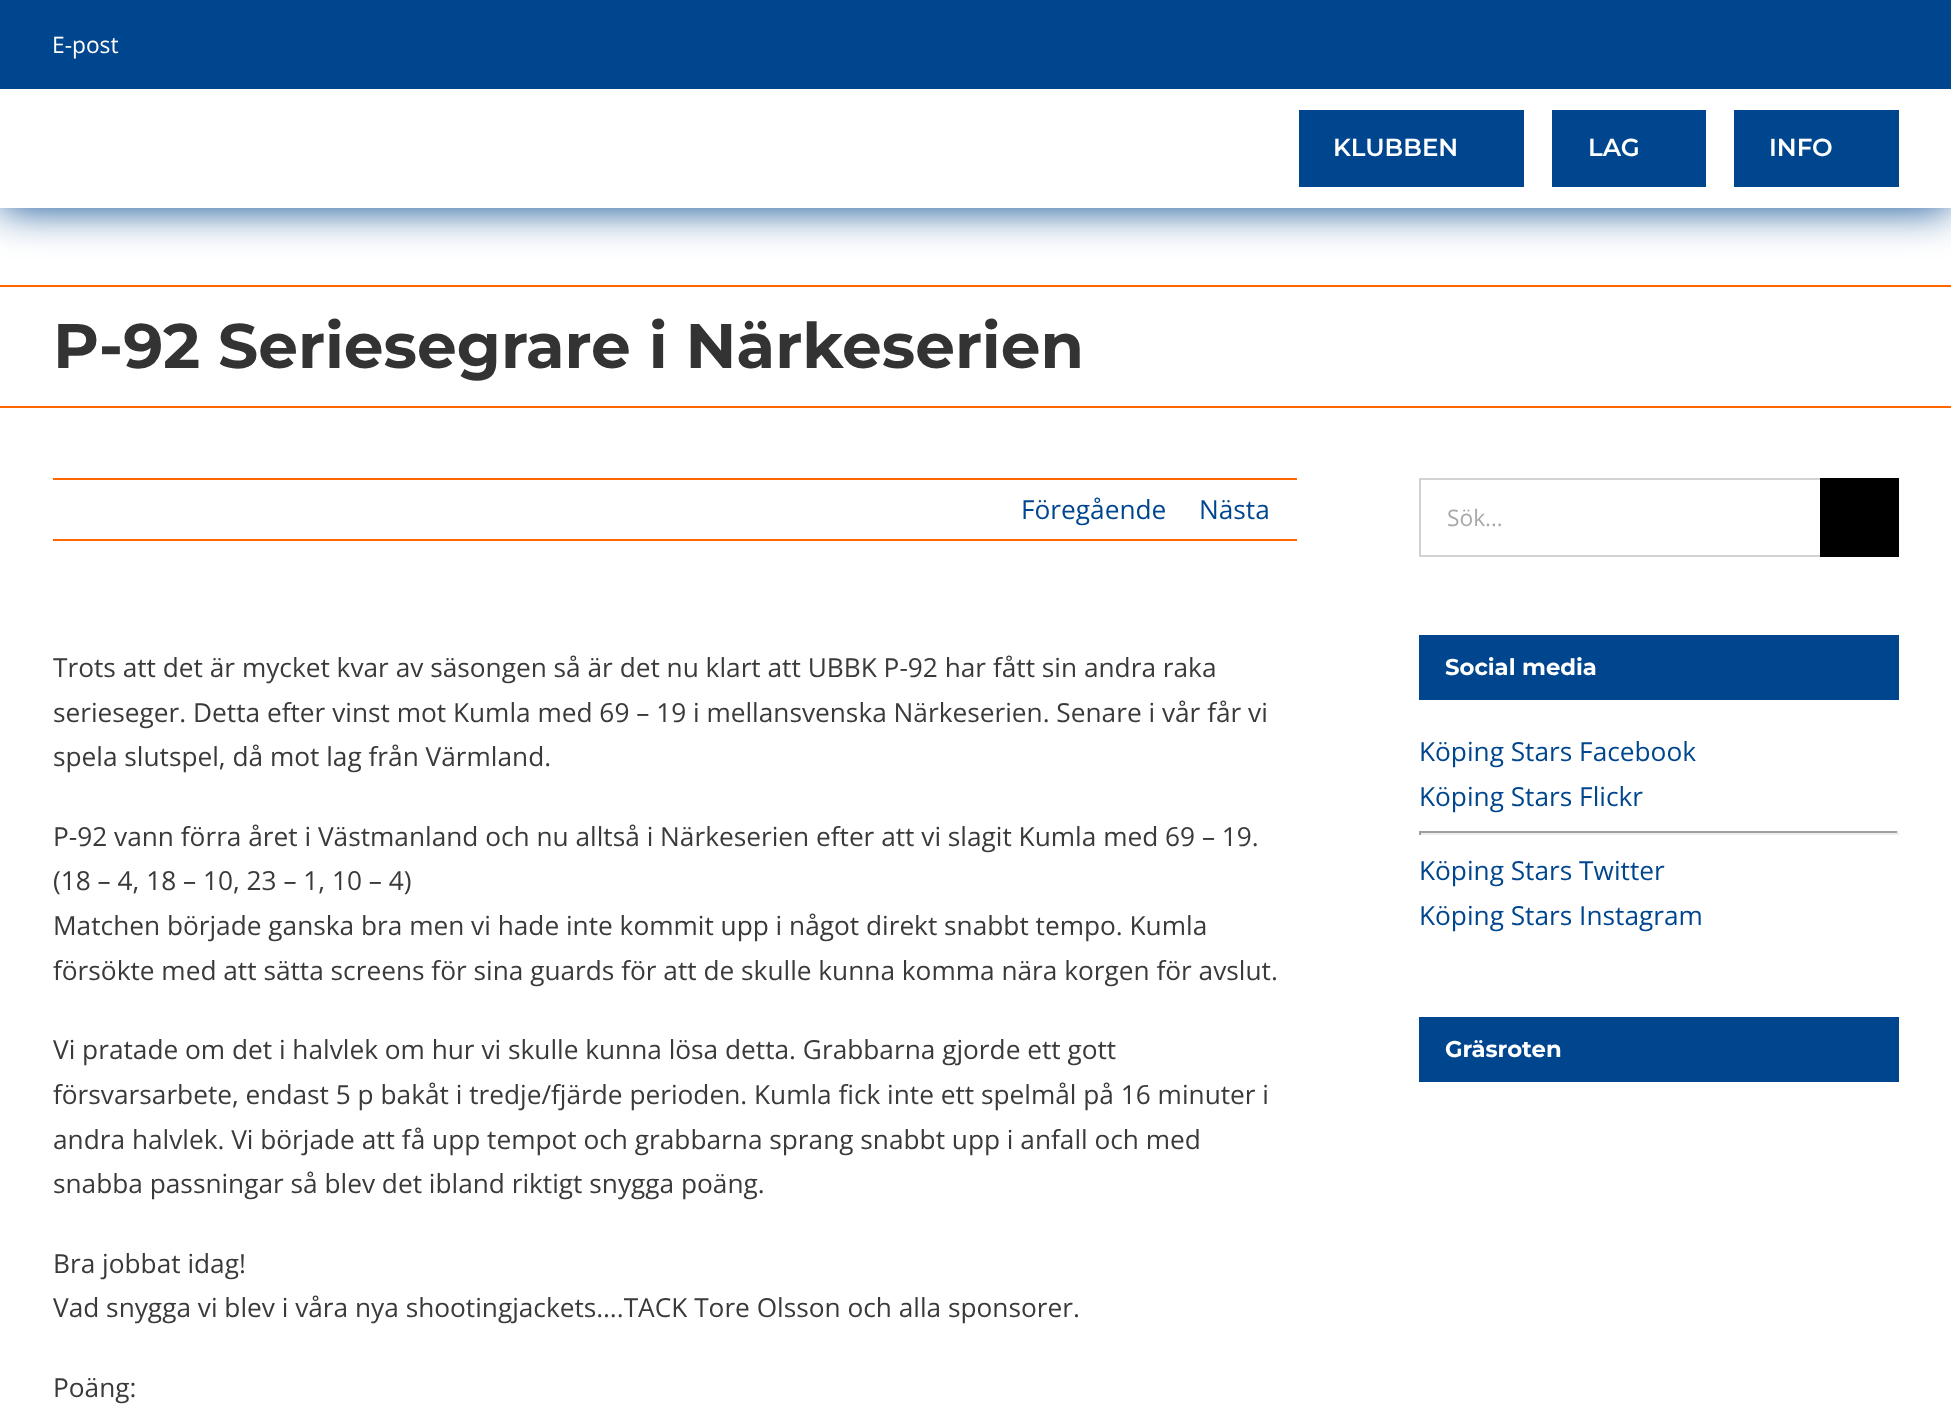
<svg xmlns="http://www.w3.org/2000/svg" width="1951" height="1414">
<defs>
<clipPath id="clip1"><path d="M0 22h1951v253h-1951zm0 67h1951v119h-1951z" clip-rule="evenodd"/></clipPath>
</defs>
<rect width="100%" height="100%" fill="#fff"/>
<g clip-path="url(#clip1)">
<rect y="89" width="1951" height="119" fill="#00468e" filter="blur(22px)"/>
</g>
<rect width="1951" height="89" fill="#00468e"/>
<text x="52" y="53" style="font-family:Open Sans;font-size:22.75px;fill:#fff">E-post</text>
<rect x="1299" y="110" width="225" height="77" fill="#00468e"/>
<text x="1333" y="156" style="font-family:Montserrat;font-size:24.5px;font-weight:600;fill:#fff">KLUBBEN</text>
<rect x="1552" y="110" width="154" height="77" fill="#00468e"/>
<text x="1588" y="156" style="font-family:Montserrat;font-size:24.5px;font-weight:600;fill:#fff">LAG</text>
<rect x="1734" y="110" width="165" height="77" fill="#00468e"/>
<text x="1769" y="156" style="font-family:Montserrat;font-size:24.5px;font-weight:600;fill:#fff">INFO</text>
<rect y="285" width="1951" height="2" fill="#f60"/>
<rect y="406" width="1951" height="2" fill="#f60"/>
<text x="53" y="368" style="font-family:Montserrat;font-size:63px;font-weight:bold;fill:#333">P-92 Seriesegrare i Närkeserien</text>
<rect x="53" y="478" width="1244" height="2" fill="#f60"/>
<rect x="53" y="539" width="1244" height="2" fill="#f60"/>
<text x="1021" y="519" style="font-family:Open Sans;font-size:26.25px;fill:#00468e">Föregående</text>
<text x="1199" y="519" style="font-family:Open Sans;font-size:26.25px;fill:#00468e">Nästa</text>
<text x="53" y="677" style="font-family:Open Sans;font-size:26.25px;fill:#3a3a3a">Trots att det är mycket kvar av säsongen så är det nu klart att UBBK P-92 har fått sin andra raka</text>
<text x="53" y="722" style="font-family:Open Sans;font-size:26.25px;fill:#3a3a3a">serieseger. Detta efter vinst mot Kumla med 69 – 19 i mellansvenska Närkeserien. Senare i vår får vi</text>
<text x="53" y="766" style="font-family:Open Sans;font-size:26.25px;fill:#3a3a3a">spela slutspel, då mot lag från Värmland.</text>
<text x="53" y="846" style="font-family:Open Sans;font-size:26.25px;fill:#3a3a3a">P-92 vann förra året i Västmanland och nu alltså i Närkeserien efter att vi slagit Kumla med 69 – 19.</text>
<text x="53" y="890" style="font-family:Open Sans;font-size:26.25px;fill:#3a3a3a">(18 – 4, 18 – 10, 23 – 1, 10 – 4)</text>
<text x="53" y="935" style="font-family:Open Sans;font-size:26.25px;fill:#3a3a3a">Matchen började ganska bra men vi hade inte kommit upp i något direkt snabbt tempo. Kumla</text>
<text x="53" y="980" style="font-family:Open Sans;font-size:26.25px;fill:#3a3a3a">försökte med att sätta screens för sina guards för att de skulle kunna komma nära korgen för avslut.</text>
<text x="53" y="1059" style="font-family:Open Sans;font-size:26.25px;fill:#3a3a3a">Vi pratade om det i halvlek om hur vi skulle kunna lösa detta. Grabbarna gjorde ett gott</text>
<text x="53" y="1104" style="font-family:Open Sans;font-size:26.25px;fill:#3a3a3a">försvarsarbete, endast 5 p bakåt i tredje/fjärde perioden. Kumla fick inte ett spelmål på 16 minuter i</text>
<text x="53" y="1149" style="font-family:Open Sans;font-size:26.25px;fill:#3a3a3a">andra halvlek. Vi började att få upp tempot och grabbarna sprang snabbt upp i anfall och med</text>
<text x="53" y="1193" style="font-family:Open Sans;font-size:26.25px;fill:#3a3a3a">snabba passningar så blev det ibland riktigt snygga poäng.</text>
<text x="53" y="1273" style="font-family:Open Sans;font-size:26.25px;fill:#3a3a3a">Bra jobbat idag!</text>
<text x="53" y="1317" style="font-family:Open Sans;font-size:26.25px;fill:#3a3a3a">Vad snygga vi blev i våra nya shootingjackets….TACK Tore Olsson och alla sponsorer.</text>
<text x="53" y="1397" style="font-family:Open Sans;font-size:26.25px;fill:#3a3a3a">Poäng:</text>
<rect x="1419" y="478" width="401" height="2" fill="#d2d2d2"/>
<rect x="1419" y="555" width="401" height="2" fill="#d2d2d2"/>
<rect x="1419" y="478" width="2" height="79" fill="#d2d2d2"/>
<text x="1447" y="526" style="font-family:Open Sans;font-size:22.75px;fill:#aaa9a9">Sök…</text>
<rect x="1820" y="478" width="79" height="79" fill="#000"/>
<rect x="1419" y="635" width="480" height="65" fill="#00468e"/>
<text x="1445" y="675" style="font-family:Montserrat;font-size:22.75px;font-weight:bold;fill:#fff">Social media</text>
<text x="1419" y="761" style="font-family:Open Sans;font-size:26.25px;fill:#00468e">Köping Stars Facebook</text>
<text x="1419" y="806" style="font-family:Open Sans;font-size:26.25px;fill:#00468e">Köping Stars Flickr</text>
<rect x="1419" y="831" width="480" height="2" fill="#9f9f9f"/>
<rect x="1897" y="831" width="2" height="4" fill="#eee"/>
<rect x="1419" y="833" width="480" height="2" fill="#eee"/>
<rect x="1419" y="831" width="2" height="4" fill="#9f9f9f"/>
<text x="1419" y="880" style="font-family:Open Sans;font-size:26.25px;fill:#00468e">Köping Stars Twitter</text>
<text x="1419" y="925" style="font-family:Open Sans;font-size:26.25px;fill:#00468e">Köping Stars Instagram</text>
<rect x="1419" y="1017" width="480" height="65" fill="#00468e"/>
<text x="1445" y="1057" style="font-family:Montserrat;font-size:22.75px;font-weight:bold;fill:#fff">Gräsroten</text>
</svg>
